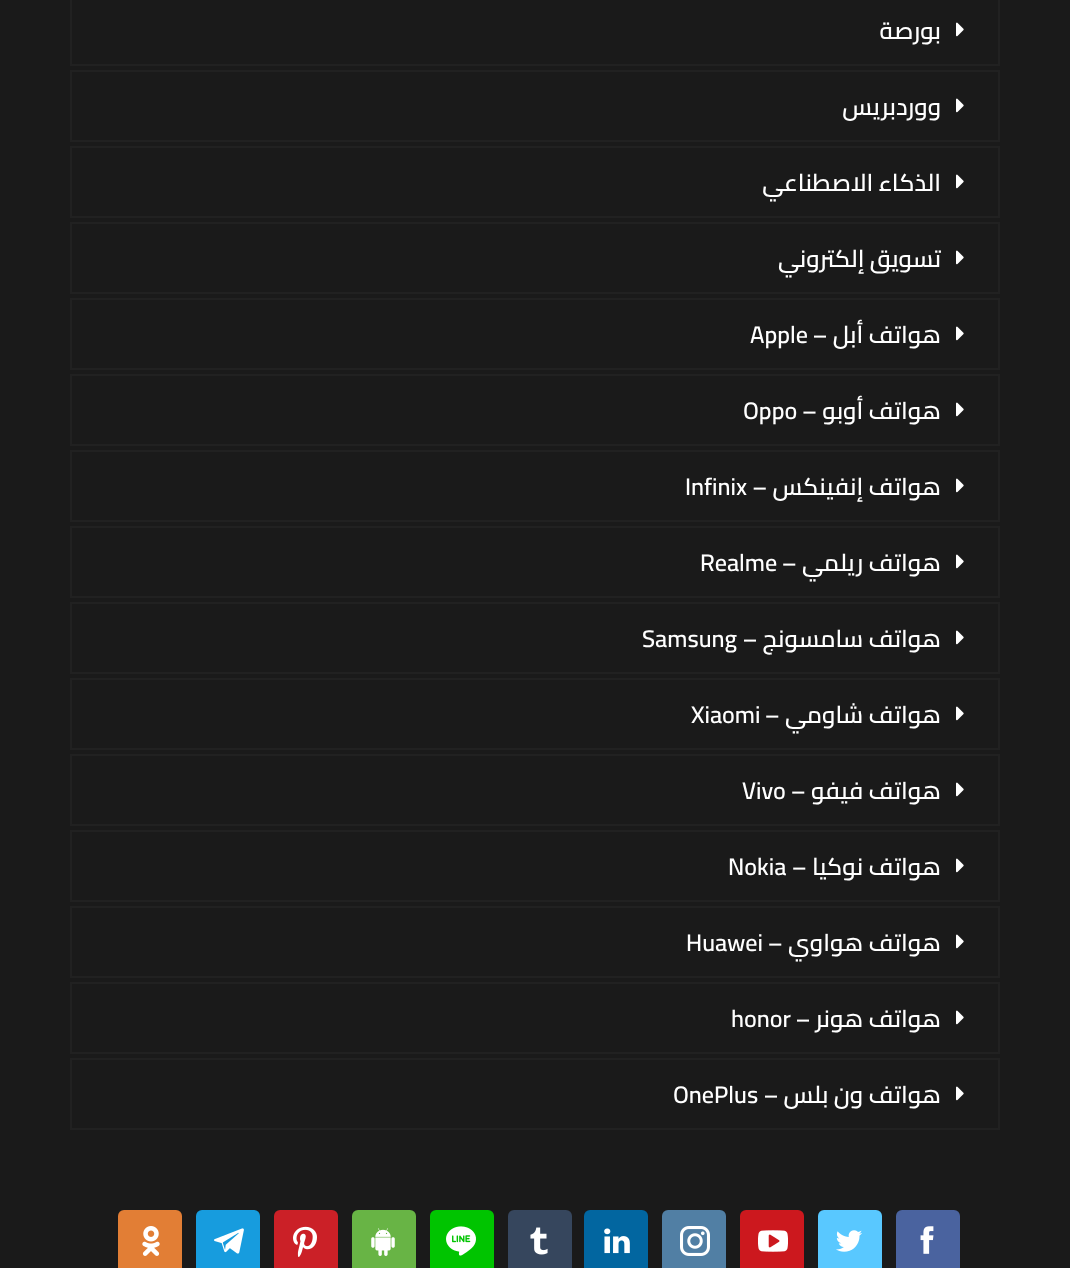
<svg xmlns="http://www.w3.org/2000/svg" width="1070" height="1268">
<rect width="100%" height="100%" fill="#1a1a1a"/>
<rect x="71" y="-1" width="928" height="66" fill="none" stroke="#212121" stroke-width="2"/>
<image x="956" y="22" width="8" height="15" href="media/1.png"/>
<text x="941" y="39" style="font-family:Cairo;font-size:24px;font-weight:600;direction:rtl;fill:#fff">بورصة</text>
<rect x="71" y="71" width="928" height="70" fill="none" stroke="#212121" stroke-width="2"/>
<image x="956" y="98" width="8" height="15" href="media/1.png"/>
<text x="941" y="115" style="font-family:Cairo;font-size:24px;font-weight:600;direction:rtl;fill:#fff">ووردبريس</text>
<rect x="71" y="147" width="928" height="70" fill="none" stroke="#212121" stroke-width="2"/>
<image x="956" y="174" width="8" height="15" href="media/1.png"/>
<text x="941" y="191" style="font-family:Cairo;font-size:24px;font-weight:600;direction:rtl;fill:#fff">الذكاء الاصطناعي</text>
<rect x="71" y="223" width="928" height="70" fill="none" stroke="#212121" stroke-width="2"/>
<image x="956" y="250" width="8" height="15" href="media/1.png"/>
<text x="941" y="267" style="font-family:Cairo;font-size:24px;font-weight:600;direction:rtl;fill:#fff">تسويق إلكتروني</text>
<rect x="71" y="299" width="928" height="70" fill="none" stroke="#212121" stroke-width="2"/>
<image x="956" y="326" width="8" height="15" href="media/1.png"/>
<text x="941" y="343" style="font-family:Cairo;font-size:24px;font-weight:600;direction:rtl;fill:#fff">هواتف أبل –</text>
<text x="750" y="343" style="font-family:Cairo;font-size:24px;font-weight:600;fill:#fff">Apple</text>
<rect x="71" y="375" width="928" height="70" fill="none" stroke="#212121" stroke-width="2"/>
<image x="956" y="402" width="8" height="15" href="media/1.png"/>
<text x="941" y="419" style="font-family:Cairo;font-size:24px;font-weight:600;direction:rtl;fill:#fff">هواتف أوبو –</text>
<text x="743" y="419" style="font-family:Cairo;font-size:24px;font-weight:600;fill:#fff">Oppo</text>
<rect x="71" y="451" width="928" height="70" fill="none" stroke="#212121" stroke-width="2"/>
<image x="956" y="478" width="8" height="15" href="media/1.png"/>
<text x="941" y="495" style="font-family:Cairo;font-size:24px;font-weight:600;direction:rtl;fill:#fff">هواتف إنفينكس –</text>
<text x="685" y="495" style="font-family:Cairo;font-size:24px;font-weight:600;fill:#fff">Infinix</text>
<rect x="71" y="527" width="928" height="70" fill="none" stroke="#212121" stroke-width="2"/>
<image x="956" y="554" width="8" height="15" href="media/1.png"/>
<text x="941" y="571" style="font-family:Cairo;font-size:24px;font-weight:600;direction:rtl;fill:#fff">هواتف ريلمي –</text>
<text x="700" y="571" style="font-family:Cairo;font-size:24px;font-weight:600;fill:#fff">Realme</text>
<rect x="71" y="603" width="928" height="70" fill="none" stroke="#212121" stroke-width="2"/>
<image x="956" y="630" width="8" height="15" href="media/1.png"/>
<text x="941" y="647" style="font-family:Cairo;font-size:24px;font-weight:600;direction:rtl;fill:#fff">هواتف سامسونج –</text>
<text x="642" y="647" style="font-family:Cairo;font-size:24px;font-weight:600;fill:#fff">Samsung</text>
<rect x="71" y="679" width="928" height="70" fill="none" stroke="#212121" stroke-width="2"/>
<image x="956" y="706" width="8" height="15" href="media/1.png"/>
<text x="941" y="723" style="font-family:Cairo;font-size:24px;font-weight:600;direction:rtl;fill:#fff">هواتف شاومي –</text>
<text x="691" y="723" style="font-family:Cairo;font-size:24px;font-weight:600;fill:#fff">Xiaomi</text>
<rect x="71" y="755" width="928" height="70" fill="none" stroke="#212121" stroke-width="2"/>
<image x="956" y="782" width="8" height="15" href="media/1.png"/>
<text x="941" y="799" style="font-family:Cairo;font-size:24px;font-weight:600;direction:rtl;fill:#fff">هواتف فيفو –</text>
<text x="742" y="799" style="font-family:Cairo;font-size:24px;font-weight:600;fill:#fff">Vivo</text>
<rect x="71" y="831" width="928" height="70" fill="none" stroke="#212121" stroke-width="2"/>
<image x="956" y="858" width="8" height="15" href="media/1.png"/>
<text x="941" y="875" style="font-family:Cairo;font-size:24px;font-weight:600;direction:rtl;fill:#fff">هواتف نوكيا –</text>
<text x="728" y="875" style="font-family:Cairo;font-size:24px;font-weight:600;fill:#fff">Nokia</text>
<rect x="71" y="907" width="928" height="70" fill="none" stroke="#212121" stroke-width="2"/>
<image x="956" y="934" width="8" height="15" href="media/1.png"/>
<text x="941" y="951" style="font-family:Cairo;font-size:24px;font-weight:600;direction:rtl;fill:#fff">هواتف هواوي –</text>
<text x="686" y="951" style="font-family:Cairo;font-size:24px;font-weight:600;fill:#fff">Huawei</text>
<rect x="71" y="983" width="928" height="70" fill="none" stroke="#212121" stroke-width="2"/>
<image x="956" y="1010" width="8" height="15" href="media/1.png"/>
<text x="941" y="1027" style="font-family:Cairo;font-size:24px;font-weight:600;direction:rtl;fill:#fff">هواتف هونر –</text>
<text x="731" y="1027" style="font-family:Cairo;font-size:24px;font-weight:600;fill:#fff">honor</text>
<rect x="71" y="1059" width="928" height="70" fill="none" stroke="#212121" stroke-width="2"/>
<image x="956" y="1086" width="8" height="15" href="media/1.png"/>
<text x="941" y="1103" style="font-family:Cairo;font-size:24px;font-weight:600;direction:rtl;fill:#fff">هواتف ون بلس –</text>
<text x="673" y="1103" style="font-family:Cairo;font-size:24px;font-weight:600;fill:#fff">OnePlus</text>
<rect x="896" y="1210" width="64" height="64" rx="6" fill="#4a639f"/>
<image x="920" y="1226" width="14" height="28" href="media/2.png"/>
<rect x="818" y="1210" width="64" height="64" rx="6" fill="#59c8ff"/>
<image x="836" y="1230" width="26" height="22" href="media/3.png"/>
<rect x="740" y="1210" width="64" height="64" rx="6" fill="#cc181e"/>
<image x="758" y="1230" width="30" height="22" href="media/4.png"/>
<rect x="662" y="1210" width="64" height="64" rx="6" fill="#517fa4"/>
<image x="680" y="1226" width="30" height="30" href="media/5.png"/>
<rect x="584" y="1210" width="64" height="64" rx="6" fill="#0266a0"/>
<image x="604" y="1228" width="26" height="26" href="media/6.png"/>
<rect x="508" y="1210" width="64" height="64" rx="6" fill="#36465d"/>
<image x="530" y="1227" width="18" height="28" href="media/7.png"/>
<rect x="430" y="1210" width="64" height="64" rx="6" fill="#00c400"/>
<image x="446" y="1226" width="30" height="30" href="media/8.png"/>
<rect x="352" y="1210" width="64" height="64" rx="6" fill="#68b445"/>
<image x="371" y="1228" width="24" height="28" href="media/9.png"/>
<rect x="274" y="1210" width="64" height="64" rx="6" fill="#cb2027"/>
<image x="293" y="1226" width="24" height="31" href="media/10.png"/>
<rect x="196" y="1210" width="64" height="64" rx="6" fill="#179cde"/>
<image x="214" y="1228" width="30" height="26" href="media/11.png"/>
<rect x="118" y="1210" width="64" height="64" rx="6" fill="#e27e35"/>
<image x="142" y="1226" width="18" height="30" href="media/12.png"/>
</svg>
